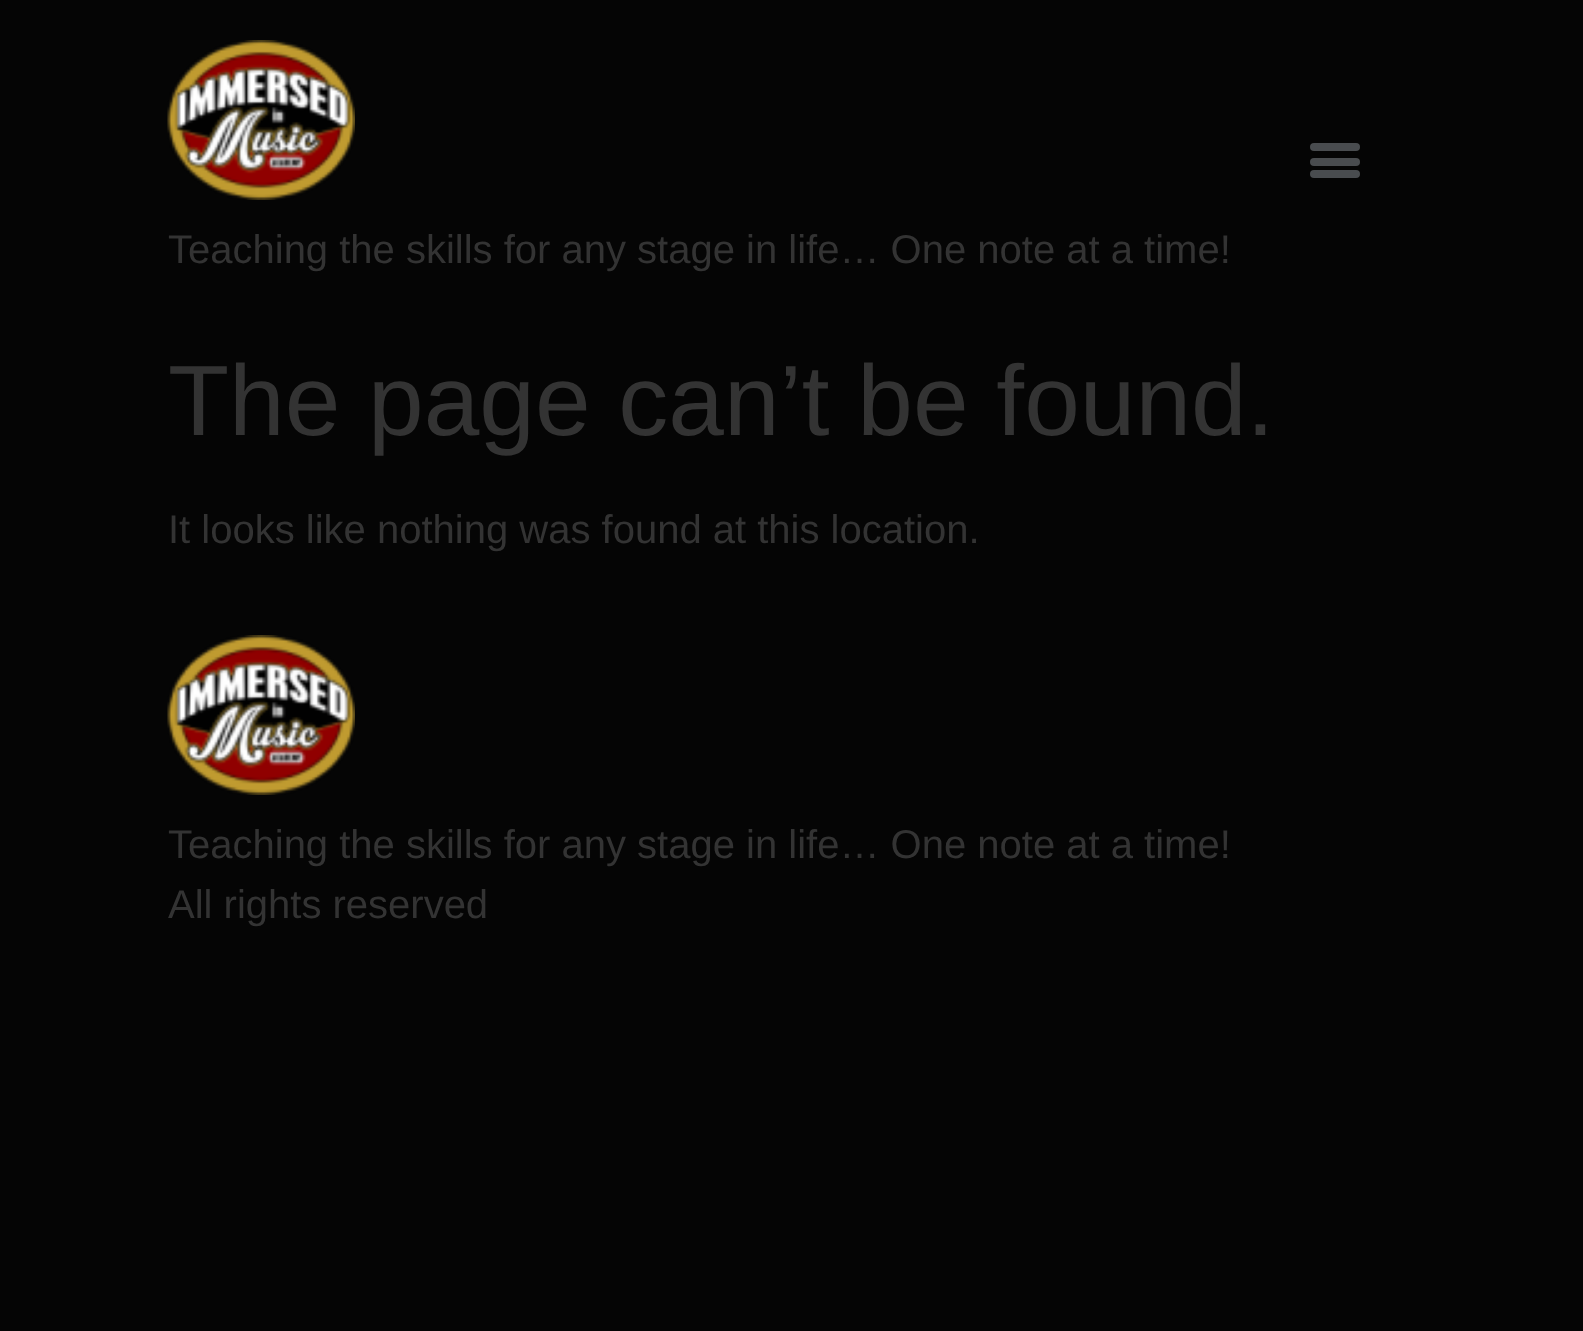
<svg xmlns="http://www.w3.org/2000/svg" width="1583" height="1331">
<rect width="100%" height="100%" fill="#050505"/>
<rect x="1310" y="158" width="50" height="8" rx="4" fill="#494c4f"/>
<rect x="1310" y="143" width="50" height="8" rx="4" fill="#494c4f"/>
<rect x="1310" y="170" width="50" height="8" rx="4" fill="#494c4f"/>
<image x="167" y="40" width="188" height="160" href="media/1.png"/>
<text x="168" y="263" style="font-family:Liberation Sans;font-size:40px;fill:#333">Teaching the skills for any stage in life… One note at a time!</text>
<text x="168" y="435" style="font-family:Liberation Sans;font-size:100px;fill:#333">The page can’t be found.</text>
<text x="168" y="543" style="font-family:Liberation Sans;font-size:40px;fill:#333">It looks like nothing was found at this location.</text>
<image x="167" y="635" width="188" height="160" href="media/1.png"/>
<text x="168" y="858" style="font-family:Liberation Sans;font-size:40px;fill:#333">Teaching the skills for any stage in life… One note at a time!</text>
<text x="168" y="918" style="font-family:Liberation Sans;font-size:40px;fill:#333">All rights reserved</text>
</svg>
